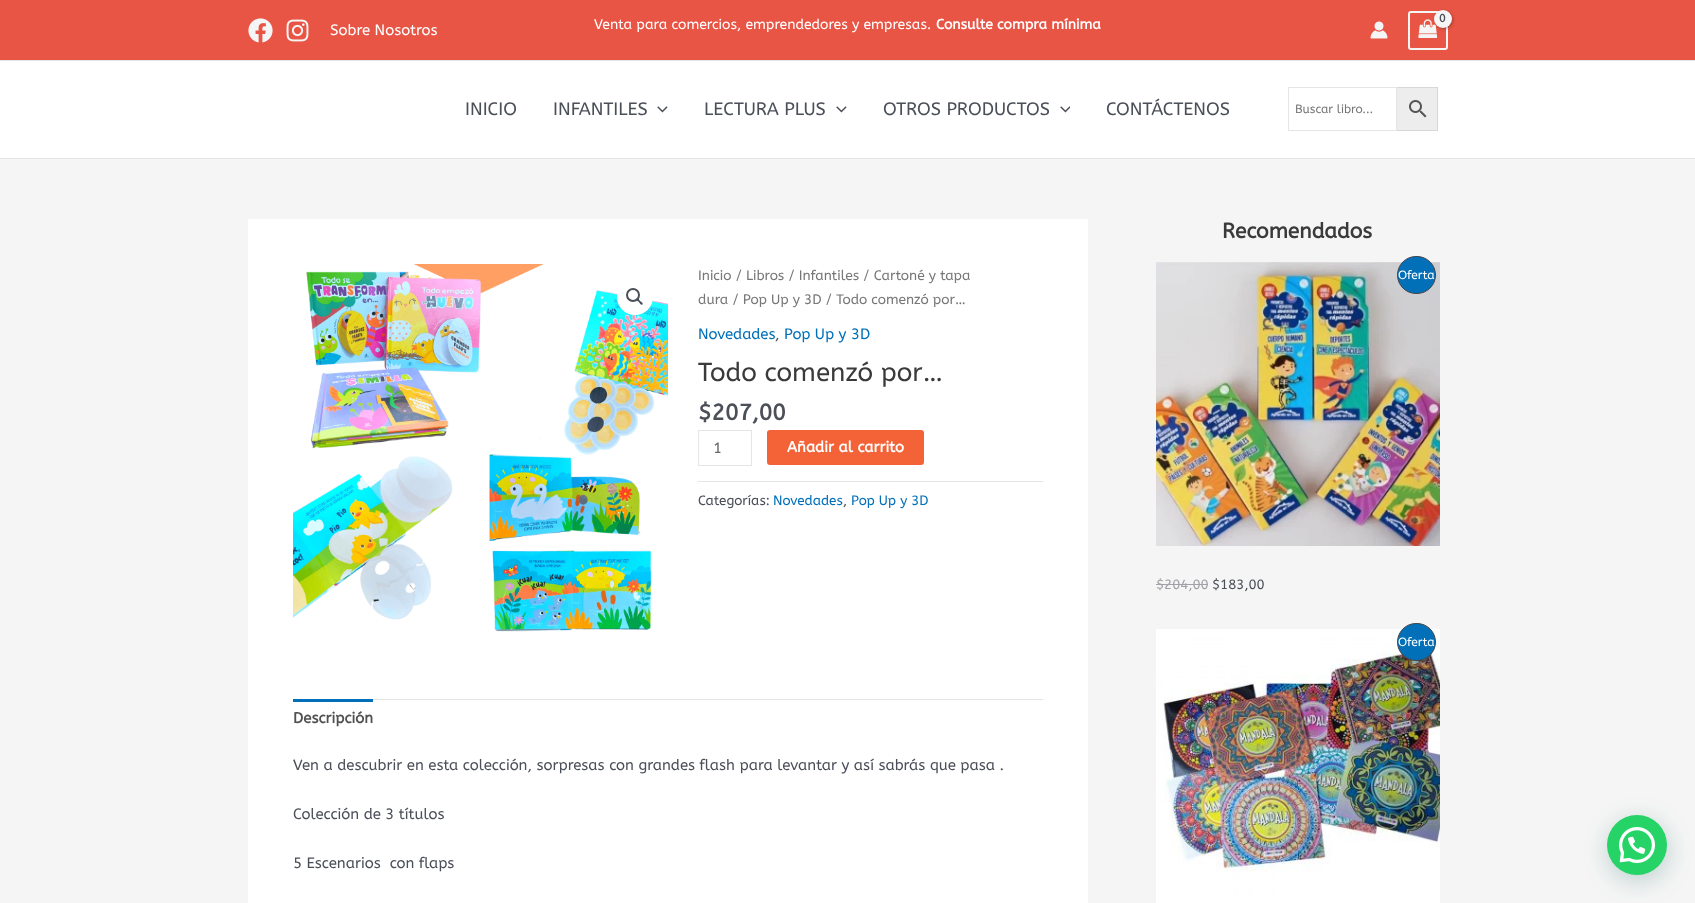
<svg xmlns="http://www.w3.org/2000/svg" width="1695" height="903">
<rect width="100%" height="100%" fill="#f5f5f5"/>
<rect width="1695" height="60" fill="#e85545"/>
<rect y="60" width="1695" height="1" fill="#e5e5e5"/>
<image x="248" y="18" width="25" height="25" href="media/1.png"/>
<image x="286" y="19" width="23" height="23" href="media/2.png"/>
<text x="330" y="35" style="font-family:ABeeZee;font-size:15px;fill:#fff">Sobre Nosotros</text>
<text x="594" y="29" style="font-family:ABeeZee;font-size:14px;fill:#fff">Venta para comercios, emprendedores y empresas.</text>
<text x="936" y="29" style="font-family:ABeeZee;font-size:14px;font-weight:bold;fill:#fff">Consulte compra mínima</text>
<rect x="1409" y="12" width="38" height="37" rx="2" fill="none" stroke="#f5f5f5" stroke-width="2"/>
<image x="1418" y="19" width="20" height="19" href="media/3.png"/>
<rect x="1435" y="11" width="18" height="18" rx="9" fill="#0000004d" filter="blur(1.5px)"/>
<circle cx="1443" cy="19" r="9" fill="#f5f5f5"/>
<text x="1439" y="22" style="font-family:ABeeZee;font-size:11px;font-weight:bold;fill:#4b4f58">0</text>
<image x="1370" y="21" width="18" height="18" href="media/4.png"/>
<rect y="61" width="1695" height="97" fill="#fff"/>
<rect y="158" width="1695" height="1" fill="#e5e5e5"/>
<text x="465" y="115" style="font-family:ABeeZee;font-size:18px;fill:#4b4f58">INICIO</text>
<text x="553" y="115" style="font-family:ABeeZee;font-size:18px;fill:#4b4f58">INFANTILES</text>
<image x="657" y="106" width="11" height="7" href="media/5.png"/>
<text x="704" y="115" style="font-family:ABeeZee;font-size:18px;fill:#4b4f58">LECTURA PLUS</text>
<image x="836" y="106" width="11" height="7" href="media/5.png"/>
<text x="883" y="115" style="font-family:ABeeZee;font-size:18px;fill:#4b4f58">OTROS PRODUCTOS</text>
<image x="1060" y="106" width="10" height="7" href="media/6.png"/>
<text x="1106" y="115" style="font-family:ABeeZee;font-size:18px;fill:#4b4f58">CONTÁCTENOS</text>
<rect x="1396.5" y="87.5" width="41" height="43" fill="#ededed" stroke="#d8d8d8"/>
<rect x="1288.5" y="87.5" width="108" height="43" fill="none" stroke="#e5e5e5"/>
<text x="1295" y="113" style="font-family:ABeeZee;font-size:12px;fill:#777">Buscar libro...</text>
<image x="1409" y="100" width="18" height="18" href="media/7.png"/>
<rect x="248" y="219" width="840" height="684" fill="#fff"/>
<image x="293" y="264" width="375" height="368" href="media/8.png"/>
<circle cx="635" cy="297" r="18" fill="#fff"/>
<circle cx="633" cy="295" r="6" fill="none" stroke="#4b4f58" stroke-width="2"/>
<path d="M636.5 298.5c1.5-1 3 1.5 3.5 2.5c1 .5 3.5 2 2.5 3.5c-1.5 1-3-1.5-3.5-2.5c-1-.5-3.5-2-2.5-3.5z" fill="#4b4f58"/>
<text x="698" y="280" style="font-family:ABeeZee;font-size:13.75px;fill:#777">Inicio / Libros / Infantiles / Cartoné y tapa</text>
<text x="698" y="304" style="font-family:ABeeZee;font-size:13.75px;fill:#777">dura / Pop Up y 3D / Todo comenzó por…</text>
<text x="698" y="339" style="font-family:ABeeZee;font-size:15px;fill:#0170b9">Novedades</text>
<text x="775" y="339" style="font-family:ABeeZee;font-size:15px;fill:#4b4f58">,</text>
<text x="784" y="339" style="font-family:ABeeZee;font-size:15px;fill:#0170b9">Pop Up y 3D</text>
<text x="698" y="381" style="font-family:ABeeZee;font-size:26px;fill:#3a3a3a">Todo comenzó por…</text>
<text x="698" y="420" style="font-family:ABeeZee;font-size:22.5px;font-weight:bold;fill:#4b4f58">$207,00</text>
<rect x="698.5" y="430.5" width="53" height="35" fill="none" stroke="#e5e5e5"/>
<text x="713" y="453" style="font-family:ABeeZee;font-size:15px;fill:#666">1</text>
<rect x="767" y="430" width="157" height="35" rx="3" fill="#f36337"/>
<text x="787" y="452" style="font-family:ABeeZee;font-size:15px;font-weight:bold;fill:#fff">Añadir al carrito</text>
<rect x="698" y="481" width="345" height="1" fill="#e5e5e5"/>
<text x="698" y="505" style="font-family:ABeeZee;font-size:13.5px;fill:#4b4f58">Categorías:</text>
<text x="773" y="505" style="font-family:ABeeZee;font-size:13.5px;fill:#0170b9">Novedades</text>
<text x="843" y="505" style="font-family:ABeeZee;font-size:13.5px;fill:#4b4f58">,</text>
<text x="851" y="505" style="font-family:ABeeZee;font-size:13.5px;fill:#0170b9">Pop Up y 3D</text>
<rect x="373" y="699" width="670" height="1" fill="#e5e5e5"/>
<rect x="293" y="699" width="80" height="3" fill="#0170b9"/>
<text x="293" y="723" style="font-family:ABeeZee;font-size:15px;font-weight:bold;fill:#515151">Descripción</text>
<text x="293" y="770" style="font-family:ABeeZee;font-size:15px;fill:#4b4f58">Ven a descubrir en esta colección, sorpresas con grandes flash para levantar y así sabrás que pasa .</text>
<text x="293" y="819" style="font-family:ABeeZee;font-size:15px;fill:#4b4f58">Colección de 3 títulos</text>
<text x="293" y="868" style="font-family:ABeeZee;font-size:15px;fill:#4b4f58" xml:space="preserve">5 Escenarios  con flaps</text>
<text x="1222" y="238" style="font-family:ABeeZee;font-size:21px;font-weight:bold;fill:#3a3a3a">Recomendados</text>
<image x="1156" y="262" width="284" height="284" href="media/9.png"/>
<rect x="1397.5" y="256.5" width="38" height="37" rx="18.5" fill="#0170b9" stroke="#43454b"/>
<text x="1398" y="279" style="font-family:ABeeZee;font-size:12px;fill:#fff">Oferta</text>
<text x="1156" y="589" style="font-family:ABeeZee;font-size:13.5px;fill:#a0a2a7">$204,00</text>
<rect x="1156" y="584" width="52" height="1" fill="#a0a2a7"/>
<text x="1212" y="589" style="font-family:ABeeZee;font-size:13.5px;fill:#4b4f58">$183,00</text>
<image x="1156" y="629" width="284" height="274" href="media/10.png"/>
<rect x="1397.5" y="623.5" width="38" height="37" rx="18.5" fill="#0170b9" stroke="#43454b"/>
<text x="1398" y="646" style="font-family:ABeeZee;font-size:12px;fill:#fff">Oferta</text>
<rect x="1608" y="821" width="60" height="60" rx="30" fill="#075e543d" filter="blur(12px)"/>
<circle cx="1637" cy="845" r="30" fill="#25d366"/>
<image x="1619" y="827" width="36" height="36" href="media/11.png"/>
</svg>
